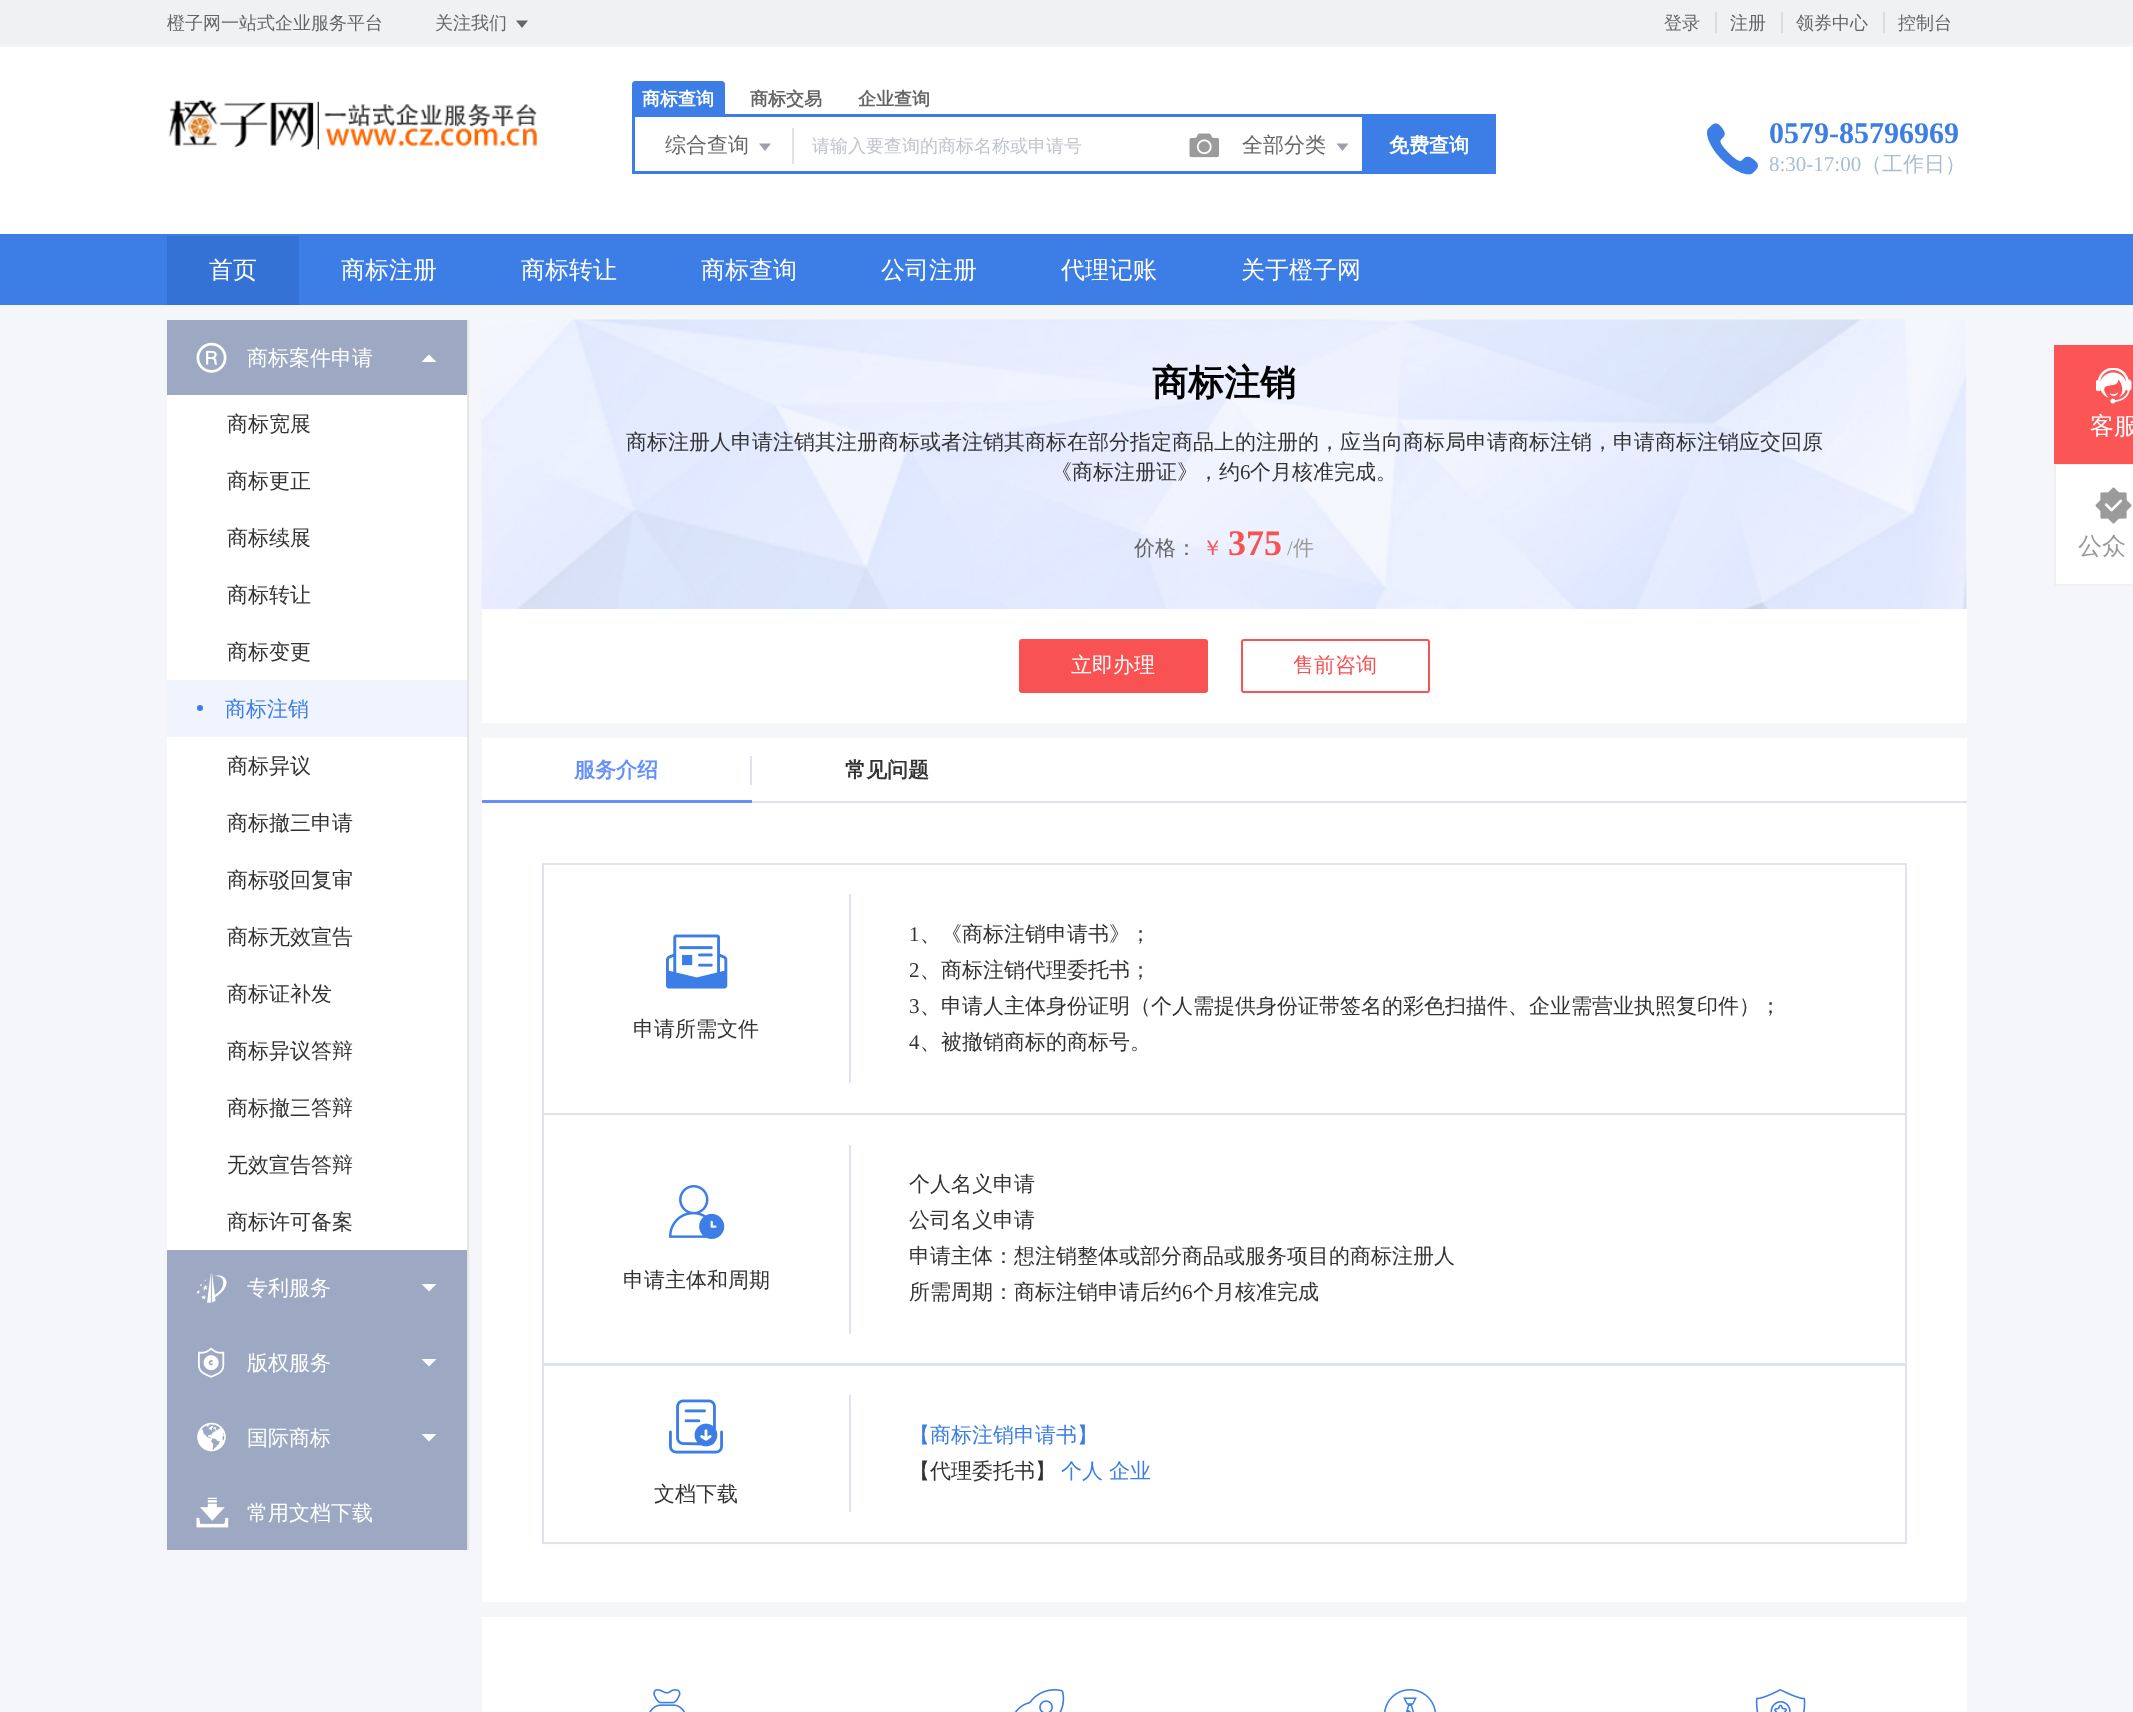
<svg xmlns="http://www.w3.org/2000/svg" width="2133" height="1712">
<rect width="100%" height="100%" fill="#f5f6fa"/>
<rect width="2133" height="45" fill="#f0f1f3"/>
<text x="167" y="29" style="font-family:WenQuanYi Zen Hei;font-size:18px;font-weight:500;fill:#666">橙子网一站式企业服务平台</text>
<text x="435" y="29" style="font-family:WenQuanYi Zen Hei;font-size:18px;font-weight:500;fill:#666">关注我们</text>
<path d="M516 20.5h12l-6 7.5z" fill="#666"/>
<text x="1664" y="29" style="font-family:WenQuanYi Zen Hei;font-size:18px;font-weight:500;fill:#666">登录</text>
<rect x="1715" y="12" width="2" height="21" fill="#ddd"/>
<text x="1730" y="29" style="font-family:WenQuanYi Zen Hei;font-size:18px;font-weight:500;fill:#666">注册</text>
<rect x="1781" y="12" width="2" height="21" fill="#ddd"/>
<text x="1796" y="29" style="font-family:WenQuanYi Zen Hei;font-size:18px;font-weight:500;fill:#666">领券中心</text>
<rect x="1883" y="12" width="2" height="21" fill="#ddd"/>
<text x="1898" y="29" style="font-family:WenQuanYi Zen Hei;font-size:18px;font-weight:500;fill:#666">控制台</text>
<rect y="47" width="2133" height="187" fill="#fff"/>
<image x="168" y="100" width="369" height="50" href="media/1.png"/>
<path d="M635 81h87c1.5 0 3 1.5 3 3v30h-93v-30c0-1.5 1.5-3 3-3z" fill="#3c7ee5"/>
<text x="642" y="105" style="font-family:WenQuanYi Zen Hei;font-size:18px;font-weight:bold;fill:#fff">商标查询</text>
<text x="750" y="105" style="font-family:WenQuanYi Zen Hei;font-size:18px;font-weight:bold;fill:#666">商标交易</text>
<text x="858" y="105" style="font-family:WenQuanYi Zen Hei;font-size:18px;font-weight:bold;fill:#666">企业查询</text>
<rect x="632" y="114" width="864" height="3" fill="#3c7ee5"/>
<rect x="632" y="171" width="730" height="3" fill="#3c7ee5"/>
<rect x="632" y="114" width="3" height="60" fill="#3c7ee5"/>
<rect x="792" y="128" width="2" height="36" fill="#e0e3e8"/>
<text x="665" y="152" style="font-family:WenQuanYi Zen Hei;font-size:21px;font-weight:500;fill:#666">综合查询</text>
<path d="M759 143.5h12l-6 7.5z" fill="#9da0a6"/>
<text x="812" y="152" style="font-family:WenQuanYi Zen Hei;font-size:18px;font-weight:500;fill:#c0c4cc">请输入要查询的商标名称或申请号</text>
<image x="1189" y="133" width="30" height="25" href="media/2.png"/>
<text x="1242" y="152" style="font-family:WenQuanYi Zen Hei;font-size:21px;font-weight:500;fill:#666">全部分类</text>
<path d="M1336.5 143.5h12l-6 7.5z" fill="#9da0a6"/>
<rect x="1362" y="117" width="134" height="57" fill="#3c7ee5"/>
<text x="1389" y="152" style="font-family:WenQuanYi Zen Hei;font-size:20px;font-weight:bold;fill:#fff">免费查询</text>
<image x="1707" y="123" width="51" height="52" href="media/3.png"/>
<text x="1769" y="143" style="font-family:Liberation Serif;font-size:30px;font-weight:bold;fill:#3c7ee5">0579-85796969</text>
<text x="1769" y="171" style="font-family:Liberation Serif;font-size:21px;fill:#a9bdd3">8:30-17:00</text>
<text x="1861" y="171" style="font-family:WenQuanYi Zen Hei;font-size:21px;font-weight:500;fill:#a9bdd3">（工作日）</text>
<rect y="234" width="2133" height="71" fill="#3c7ee5"/>
<rect x="167" y="236" width="132" height="69" fill="#3473d5"/>
<text x="209" y="278" style="font-family:WenQuanYi Zen Hei;font-size:24px;font-weight:500;fill:#fff">首页</text>
<text x="341" y="278" style="font-family:WenQuanYi Zen Hei;font-size:24px;font-weight:500;fill:#fff">商标注册</text>
<text x="521" y="278" style="font-family:WenQuanYi Zen Hei;font-size:24px;font-weight:500;fill:#fff">商标转让</text>
<text x="701" y="278" style="font-family:WenQuanYi Zen Hei;font-size:24px;font-weight:500;fill:#fff">商标查询</text>
<text x="881" y="278" style="font-family:WenQuanYi Zen Hei;font-size:24px;font-weight:500;fill:#fff">公司注册</text>
<text x="1061" y="278" style="font-family:WenQuanYi Zen Hei;font-size:24px;font-weight:500;fill:#fff">代理记账</text>
<text x="1241" y="278" style="font-family:WenQuanYi Zen Hei;font-size:24px;font-weight:500;fill:#fff">关于橙子网</text>
<rect x="167" y="395" width="300" height="855" fill="#fff"/>
<rect x="467" y="320" width="2" height="1230" fill="#e6e6e6"/>
<rect x="167" y="320" width="300" height="75" fill="#9da9c3"/>
<image x="196" y="342" width="31" height="31" href="media/4.png"/>
<text x="247" y="365" style="font-family:WenQuanYi Zen Hei;font-size:21px;font-weight:500;fill:#fff">商标案件申请</text>
<path d="M436.5 362h-15l7.5-7.5z" fill="#fff"/>
<text x="227" y="431" style="font-family:WenQuanYi Zen Hei;font-size:21px;font-weight:500;fill:#333">商标宽展</text>
<text x="227" y="488" style="font-family:WenQuanYi Zen Hei;font-size:21px;font-weight:500;fill:#333">商标更正</text>
<text x="227" y="545" style="font-family:WenQuanYi Zen Hei;font-size:21px;font-weight:500;fill:#333">商标续展</text>
<text x="227" y="602" style="font-family:WenQuanYi Zen Hei;font-size:21px;font-weight:500;fill:#333">商标转让</text>
<text x="227" y="659" style="font-family:WenQuanYi Zen Hei;font-size:21px;font-weight:500;fill:#333">商标变更</text>
<rect x="167" y="680" width="300" height="57" fill="#f0f4fe"/>
<circle cx="200" cy="708" r="3" fill="#3c7ee5"/>
<text x="225" y="716" style="font-family:WenQuanYi Zen Hei;font-size:21px;font-weight:500;fill:#3c7ee5">商标注销</text>
<text x="227" y="773" style="font-family:WenQuanYi Zen Hei;font-size:21px;font-weight:500;fill:#333">商标异议</text>
<text x="227" y="830" style="font-family:WenQuanYi Zen Hei;font-size:21px;font-weight:500;fill:#333">商标撤三申请</text>
<text x="227" y="887" style="font-family:WenQuanYi Zen Hei;font-size:21px;font-weight:500;fill:#333">商标驳回复审</text>
<text x="227" y="944" style="font-family:WenQuanYi Zen Hei;font-size:21px;font-weight:500;fill:#333">商标无效宣告</text>
<text x="227" y="1001" style="font-family:WenQuanYi Zen Hei;font-size:21px;font-weight:500;fill:#333">商标证补发</text>
<text x="227" y="1058" style="font-family:WenQuanYi Zen Hei;font-size:21px;font-weight:500;fill:#333">商标异议答辩</text>
<text x="227" y="1115" style="font-family:WenQuanYi Zen Hei;font-size:21px;font-weight:500;fill:#333">商标撤三答辩</text>
<text x="227" y="1172" style="font-family:WenQuanYi Zen Hei;font-size:21px;font-weight:500;fill:#333">无效宣告答辩</text>
<text x="227" y="1229" style="font-family:WenQuanYi Zen Hei;font-size:21px;font-weight:500;fill:#333">商标许可备案</text>
<rect x="167" y="1250" width="300" height="300" fill="#9da9c3"/>
<image x="196" y="1273" width="31" height="30" href="media/5.png"/>
<text x="247" y="1295" style="font-family:WenQuanYi Zen Hei;font-size:21px;font-weight:500;fill:#fff">专利服务</text>
<path d="M421.5 1284h15l-7.5 7.5z" fill="#fff"/>
<image x="198" y="1347" width="27" height="31" href="media/6.png"/>
<text x="247" y="1370" style="font-family:WenQuanYi Zen Hei;font-size:21px;font-weight:500;fill:#fff">版权服务</text>
<path d="M421.5 1359h15l-7.5 7.5z" fill="#fff"/>
<image x="197" y="1422" width="29" height="30" href="media/7.png"/>
<text x="247" y="1445" style="font-family:WenQuanYi Zen Hei;font-size:21px;font-weight:500;fill:#fff">国际商标</text>
<path d="M421.5 1434h15l-7.5 7.5z" fill="#fff"/>
<image x="196" y="1497" width="33" height="31" href="media/8.png"/>
<text x="247" y="1520" style="font-family:WenQuanYi Zen Hei;font-size:21px;font-weight:500;fill:#fff">常用文档下载</text>
<rect x="482" y="320" width="1485" height="403" fill="#fff"/>
<image x="481" y="319" width="1486" height="290" href="media/9.png"/>
<text x="1152" y="395" style="font-family:WenQuanYi Zen Hei;font-size:36px;font-weight:bold;fill:#000">商标注销</text>
<text x="626" y="449" style="font-family:WenQuanYi Zen Hei;font-size:21px;font-weight:500;fill:#333">商标注册人申请注销其注册商标或者注销其商标在部分指定商品上的注册的，应当向商标局申请商标注销，申请商标注销应交回原</text>
<text x="1051" y="479" style="font-family:WenQuanYi Zen Hei;font-size:21px;font-weight:500;fill:#333">《商标注册证》，约</text>
<text x="1240" y="479" style="font-family:Liberation Serif;font-size:21px;fill:#333">6</text>
<text x="1250" y="479" style="font-family:WenQuanYi Zen Hei;font-size:21px;font-weight:500;fill:#333">个月核准完成。</text>
<text x="1134" y="555" style="font-family:WenQuanYi Zen Hei;font-size:21px;font-weight:500;fill:#666">价格：</text>
<text x="1202" y="555" style="font-family:WenQuanYi Zen Hei;font-size:21px;font-weight:500;fill:#f85252">￥</text>
<text x="1228" y="555" style="font-family:Liberation Serif;font-size:36px;font-weight:bold;fill:#f85252">375</text>
<text x="1287" y="555" style="font-family:Liberation Serif;font-size:21px;fill:#999">/</text>
<text x="1293" y="555" style="font-family:WenQuanYi Zen Hei;font-size:21px;font-weight:500;fill:#999">件</text>
<rect x="1020" y="640" width="187" height="52" rx="2" fill="#f85252" stroke="#f85252" stroke-width="2"/>
<text x="1071" y="672" style="font-family:WenQuanYi Zen Hei;font-size:21px;font-weight:500;fill:#fff">立即办理</text>
<rect x="1242" y="640" width="187" height="52" rx="2" fill="none" stroke="#f85252" stroke-width="2"/>
<text x="1293" y="672" style="font-family:WenQuanYi Zen Hei;font-size:21px;font-weight:500;fill:#f85252">售前咨询</text>
<rect x="482" y="738" width="1485" height="63" fill="#fff"/>
<rect x="752" y="801" width="1215" height="2" fill="#dfe3f1"/>
<rect x="750" y="756" width="2" height="29" fill="#dfe3f1"/>
<text x="574" y="777" style="font-family:WenQuanYi Zen Hei;font-size:21px;font-weight:bold;fill:#668ffe">服务介绍</text>
<rect x="482" y="800" width="270" height="3" fill="#668ffe"/>
<text x="845" y="777" style="font-family:WenQuanYi Zen Hei;font-size:21px;font-weight:bold;fill:#333">常见问题</text>
<rect x="482" y="803" width="1485" height="799" fill="#fff"/>
<rect x="543" y="864" width="1363" height="250" fill="none" stroke="#dfe3f1" stroke-width="2"/>
<image x="666" y="934" width="62" height="55" href="media/10.png"/>
<text x="633" y="1036" style="font-family:WenQuanYi Zen Hei;font-size:21px;font-weight:500;fill:#333">申请所需文件</text>
<rect x="849" y="894" width="2" height="189" fill="#dfe3f1"/>
<text x="909" y="941" style="font-family:Liberation Serif;font-size:21px;fill:#333">1</text>
<text x="920" y="941" style="font-family:WenQuanYi Zen Hei;font-size:21px;font-weight:500;fill:#333">、《商标注销申请书》；</text>
<text x="909" y="977" style="font-family:Liberation Serif;font-size:21px;fill:#333">2</text>
<text x="920" y="977" style="font-family:WenQuanYi Zen Hei;font-size:21px;font-weight:500;fill:#333">、商标注销代理委托书；</text>
<text x="909" y="1013" style="font-family:Liberation Serif;font-size:21px;fill:#333">3</text>
<text x="920" y="1013" style="font-family:WenQuanYi Zen Hei;font-size:21px;font-weight:500;fill:#333">、申请人主体身份证明（个人需提供身份证带签名的彩色扫描件、企业需营业执照复印件）；</text>
<text x="909" y="1049" style="font-family:Liberation Serif;font-size:21px;fill:#333">4</text>
<text x="920" y="1049" style="font-family:WenQuanYi Zen Hei;font-size:21px;font-weight:500;fill:#333">、被撤销商标的商标号。</text>
<rect x="543" y="1114" width="1363" height="250" fill="none" stroke="#dfe3f1" stroke-width="2"/>
<image x="669" y="1185" width="56" height="54" href="media/11.png"/>
<text x="623" y="1287" style="font-family:WenQuanYi Zen Hei;font-size:21px;font-weight:500;fill:#333">申请主体和周期</text>
<rect x="849" y="1145" width="2" height="189" fill="#dfe3f1"/>
<text x="909" y="1191" style="font-family:WenQuanYi Zen Hei;font-size:21px;font-weight:500;fill:#333">个人名义申请</text>
<text x="909" y="1227" style="font-family:WenQuanYi Zen Hei;font-size:21px;font-weight:500;fill:#333">公司名义申请</text>
<text x="909" y="1263" style="font-family:WenQuanYi Zen Hei;font-size:21px;font-weight:500;fill:#333">申请主体：想注销整体或部分商品或服务项目的商标注册人</text>
<text x="909" y="1299" style="font-family:WenQuanYi Zen Hei;font-size:21px;font-weight:500;fill:#333">所需周期：商标注销申请后约</text>
<text x="1182" y="1299" style="font-family:Liberation Serif;font-size:21px;fill:#333">6</text>
<text x="1193" y="1299" style="font-family:WenQuanYi Zen Hei;font-size:21px;font-weight:500;fill:#333">个月核准完成</text>
<rect x="543" y="1365" width="1363" height="178" fill="none" stroke="#dfe3f1" stroke-width="2"/>
<rect x="849" y="1395" width="2" height="117" fill="#dfe3f1"/>
<text x="909" y="1442" style="font-family:WenQuanYi Zen Hei;font-size:21px;font-weight:500;fill:#3c7ee5">【商标注销申请书】</text>
<text x="909" y="1478" style="font-family:WenQuanYi Zen Hei;font-size:21px;font-weight:500;fill:#333">【代理委托书】</text>
<text x="1061" y="1478" style="font-family:WenQuanYi Zen Hei;font-size:21px;font-weight:500;fill:#3c7ee5">个人</text>
<text x="1109" y="1478" style="font-family:WenQuanYi Zen Hei;font-size:21px;font-weight:500;fill:#3c7ee5">企业</text>
<image x="669" y="1399" width="54" height="55" href="media/12.png"/>
<text x="654" y="1501" style="font-family:WenQuanYi Zen Hei;font-size:21px;font-weight:500;fill:#333">文档下载</text>
<rect x="482" y="1617" width="1485" height="95" fill="#fff"/>
<image x="649" y="1689" width="37" height="23" href="media/13.png"/>
<image x="1014" y="1689" width="51" height="23" href="media/14.png"/>
<image x="1384" y="1689" width="52" height="23" href="media/15.png"/>
<image x="1755" y="1689" width="51" height="23" href="media/16.png"/>
<rect x="2054" y="345" width="79" height="119" fill="#fb5555"/>
<rect x="2054" y="464" width="79" height="1" fill="#f1f1f1"/>
<image x="2096" y="368" width="36" height="36" href="media/17.png"/>
<text x="2090" y="434" style="font-family:WenQuanYi Zen Hei;font-size:24px;font-weight:500;fill:#fff">客服</text>
<rect x="2056" y="465" width="77" height="119" fill="#fff"/>
<rect x="2054" y="584" width="79" height="2" fill="#f1f1f1"/>
<rect x="2054" y="465" width="2" height="120" fill="#f1f1f1"/>
<image x="2095" y="487" width="37" height="37" href="media/18.png"/>
<text x="2078" y="554" style="font-family:WenQuanYi Zen Hei;font-size:24px;font-weight:500;fill:#999">公众</text>
</svg>
